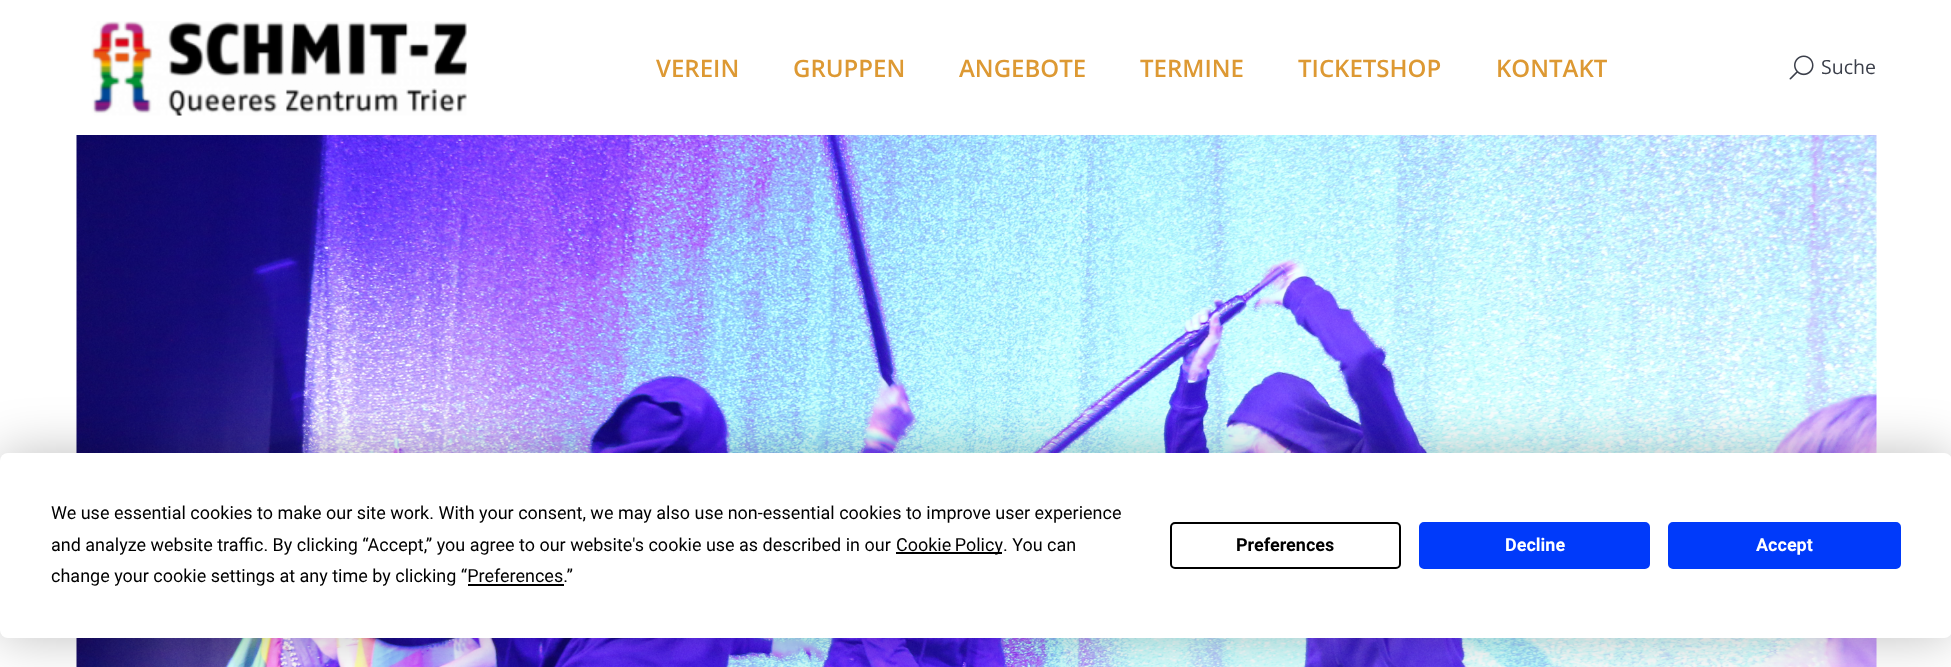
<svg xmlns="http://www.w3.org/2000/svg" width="1951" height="667">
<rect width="100%" height="100%" fill="#fff"/>
<image x="91" y="21" width="376" height="95" href="media/1.png"/>
<text x="656" y="77" style="font-family:Open Sans;font-size:24px;font-weight:600;fill:#d93">VEREIN</text>
<text x="793" y="77" style="font-family:Open Sans;font-size:24px;font-weight:600;fill:#d93">GRUPPEN</text>
<text x="959" y="77" style="font-family:Open Sans;font-size:24px;font-weight:600;fill:#d93">ANGEBOTE</text>
<text x="1140" y="77" style="font-family:Open Sans;font-size:24px;font-weight:600;fill:#d93">TERMINE</text>
<text x="1298" y="77" style="font-family:Open Sans;font-size:24px;font-weight:600;fill:#d93">TICKETSHOP</text>
<text x="1496" y="77" style="font-family:Open Sans;font-size:24px;font-weight:600;fill:#d93">KONTAKT</text>
<image x="1789" y="55" width="25" height="25" href="media/2.png"/>
<text x="1821" y="74" style="font-family:Open Sans;font-size:19.5px;fill:#3b3f4a">Suche</text>
<image x="76" y="135" width="1801" height="532" href="media/3.png"/>
<rect y="453" width="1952" height="185" rx="8" fill="#00000040" filter="blur(26px)"/>
<rect y="453" width="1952" height="185" rx="8" fill="#fff"/>
<text x="51" y="519" style="font-family:Roboto;font-size:18px;fill:#000">We use essential cookies to make our site work. With your consent, we may also use non-essential cookies to improve user experience</text>
<text x="51" y="551" style="font-family:Roboto;font-size:18px;fill:#000">and analyze website traffic. By clicking “Accept,” you agree to our website's cookie use as described in our</text>
<rect x="896" y="552" width="106" height="2" fill="#000"/>
<text x="896" y="551" word-spacing="-1" style="font-family:Roboto;font-size:18px;fill:#000">Cookie Policy</text>
<text x="1003" y="551" style="font-family:Roboto;font-size:18px;fill:#000">. You can</text>
<text x="51" y="582" style="font-family:Roboto;font-size:18px;fill:#000">change your cookie settings at any time by clicking “Preferences.”</text>
<rect x="468" y="584" width="96" height="2" fill="#000"/>
<rect x="1171" y="523" width="229" height="45" rx="4" fill="none" stroke="#000" stroke-width="2"/>
<text x="1236" y="551" style="font-family:Roboto;font-size:18px;font-weight:bold;fill:#000">Preferences</text>
<rect x="1420" y="523" width="229" height="45" rx="4" fill="#003afa" stroke="#003afa" stroke-width="2"/>
<text x="1505" y="551" style="font-family:Roboto;font-size:18px;font-weight:bold;fill:#fff">Decline</text>
<rect x="1669" y="523" width="231" height="45" rx="4" fill="#003afa" stroke="#003afa" stroke-width="2"/>
<text x="1756" y="551" style="font-family:Roboto;font-size:18px;font-weight:bold;fill:#fff">Accept</text>
</svg>
